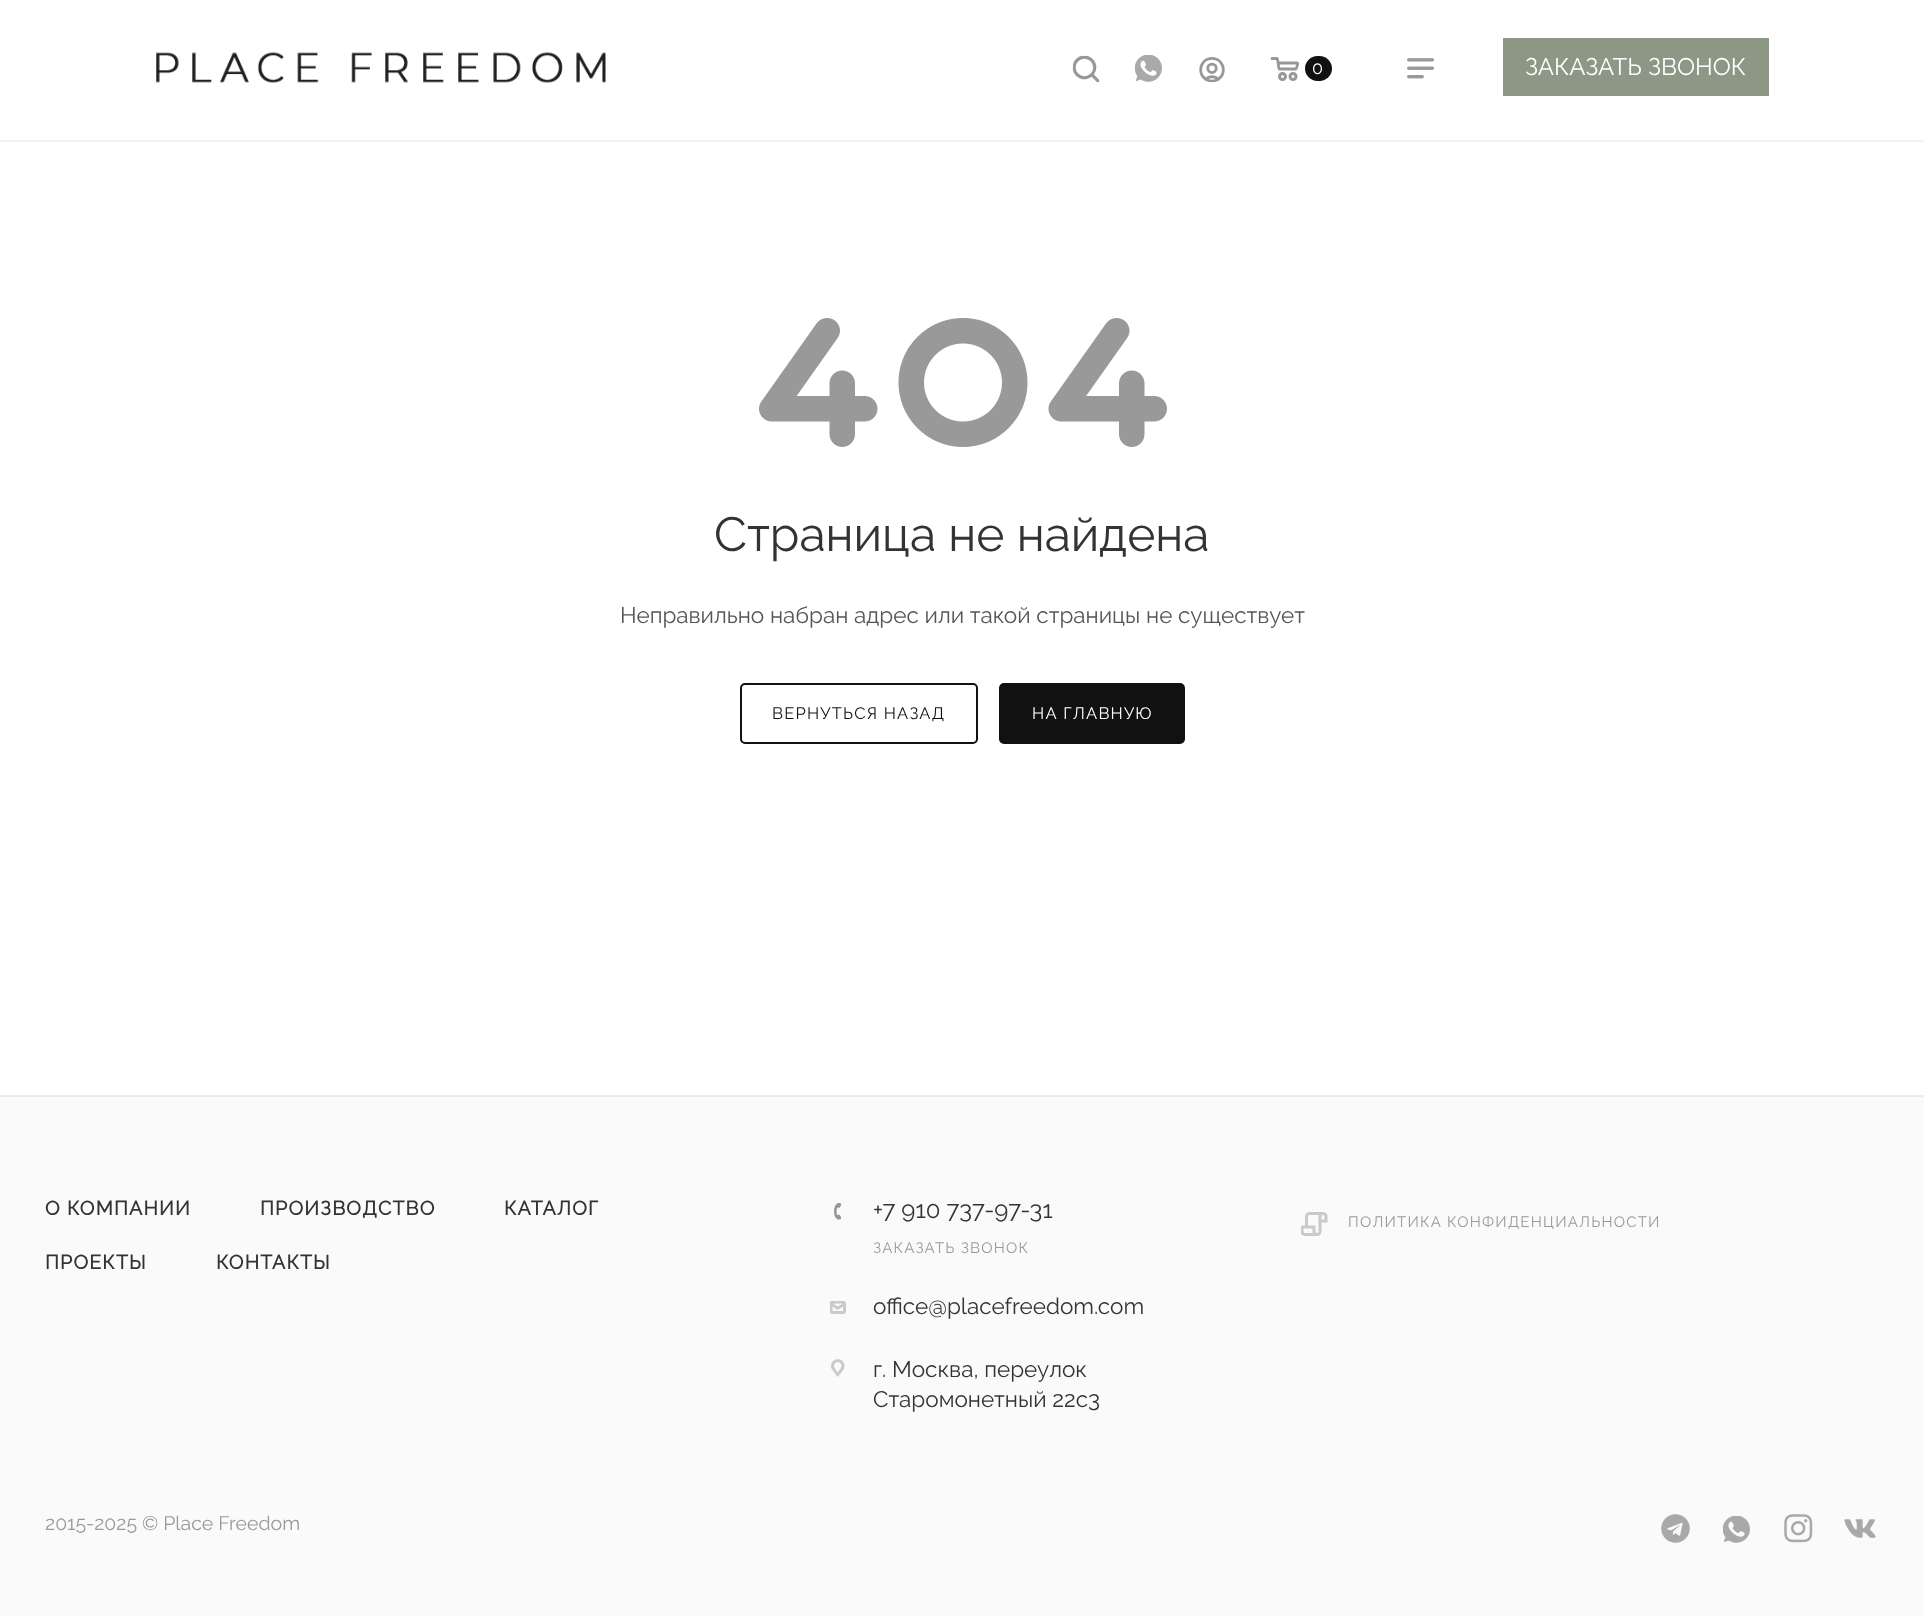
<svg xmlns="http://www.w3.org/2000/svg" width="1924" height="1616">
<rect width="100%" height="100%" fill="#fff"/>
<image x="156" y="52" width="450" height="31" href="media/1.png"/>
<image x="1072" y="55" width="28" height="28" href="media/2.png"/>
<image x="1135" y="55" width="27" height="27" href="media/3.png"/>
<image x="1199" y="57" width="26" height="26" href="media/4.png"/>
<image x="1270" y="57" width="29" height="24" href="media/5.png"/>
<rect x="1305" y="56" width="27" height="25" rx="12.5" fill="#111"/>
<text x="1312" y="74" style="font-family:Raleway;font-size:18px;font-weight:100;fill:#fff">0</text>
<image x="1407" y="58" width="27" height="21" href="media/6.png"/>
<rect x="1503" y="38" width="266" height="58" fill="#8c9785"/>
<text x="1525" y="75" style="font-family:Raleway;font-size:24px;font-weight:100;fill:#fff">ЗАКАЗАТЬ ЗВОНОК</text>
<rect y="140" width="1924" height="2" fill="#f2f2f2"/>
<image x="759" y="318" width="408" height="129" href="media/7.png"/>
<text x="714" y="551" style="font-family:Raleway;font-size:48px;font-weight:100;fill:#333">Страница не найдена</text>
<text x="620" y="623" style="font-family:Raleway;font-size:22.5px;font-weight:100;fill:#555">Неправильно набран адрес или такой страницы не существует</text>
<rect x="741" y="684" width="236" height="59" rx="4" fill="none" stroke="#111" stroke-width="2"/>
<text x="772" y="719" style="font-family:Raleway;font-size:16.5px;font-weight:100;letter-spacing:1.2px;fill:#111">ВЕРНУТЬСЯ НАЗАД</text>
<rect x="1000" y="684" width="184" height="59" rx="4" fill="#111" stroke="#111" stroke-width="2"/>
<text x="1032" y="719" style="font-family:Raleway;font-size:16.5px;font-weight:100;letter-spacing:1.2px;fill:#fff">НА ГЛАВНУЮ</text>
<rect y="1097" width="1924" height="519" fill="#fafafa"/>
<rect y="1095" width="1924" height="2" fill="#ececec"/>
<text x="45" y="1215" style="font-family:Raleway;font-size:19.5px;font-weight:bold;letter-spacing:1.2px;fill:#333">О КОМПАНИИ</text>
<text x="260" y="1215" style="font-family:Raleway;font-size:19.5px;font-weight:bold;letter-spacing:1.2px;fill:#333">ПРОИЗВОДСТВО</text>
<text x="504" y="1215" style="font-family:Raleway;font-size:19.5px;font-weight:bold;letter-spacing:1.2px;fill:#333">КАТАЛОГ</text>
<text x="45" y="1269" style="font-family:Raleway;font-size:19.5px;font-weight:bold;letter-spacing:1.2px;fill:#333">ПРОЕКТЫ</text>
<text x="216" y="1269" style="font-family:Raleway;font-size:19.5px;font-weight:bold;letter-spacing:1.2px;fill:#333">КОНТАКТЫ</text>
<image x="834" y="1203" width="8" height="17" href="media/8.png"/>
<text x="873" y="1218" style="font-family:Raleway;font-size:24px;font-weight:100;fill:#333">+7 910 737-97-31</text>
<text x="873" y="1253" style="font-family:Raleway;font-size:15px;font-weight:100;letter-spacing:1.2px;fill:#999">ЗАКАЗАТЬ ЗВОНОК</text>
<image x="830" y="1301" width="16" height="13" href="media/9.png"/>
<text x="873" y="1314" style="font-family:Raleway;font-size:22.5px;font-weight:100;fill:#333">office@placefreedom.com</text>
<image x="831" y="1359" width="14" height="18" href="media/10.png"/>
<text x="873" y="1377" style="font-family:Raleway;font-size:22.5px;font-weight:100;fill:#333">г. Москва, переулок</text>
<text x="873" y="1407" style="font-family:Raleway;font-size:22.5px;font-weight:100;fill:#333">Старомонетный 22с3</text>
<image x="1301" y="1212" width="27" height="24" href="media/11.png"/>
<text x="1348" y="1227" style="font-family:Raleway;font-size:15px;font-weight:100;letter-spacing:1.2px;fill:#999">ПОЛИТИКА КОНФИДЕНЦИАЛЬНОСТИ</text>
<text x="45" y="1530" style="font-family:Raleway;font-size:19.5px;font-weight:100;fill:#999">2015-2025 © Place Freedom</text>
<image x="1661" y="1514" width="29" height="29" href="media/12.png"/>
<image x="1723" y="1516" width="27" height="27" href="media/13.png"/>
<image x="1784" y="1514" width="29" height="29" href="media/14.png"/>
<image x="1844" y="1519" width="32" height="19" href="media/15.png"/>
</svg>
